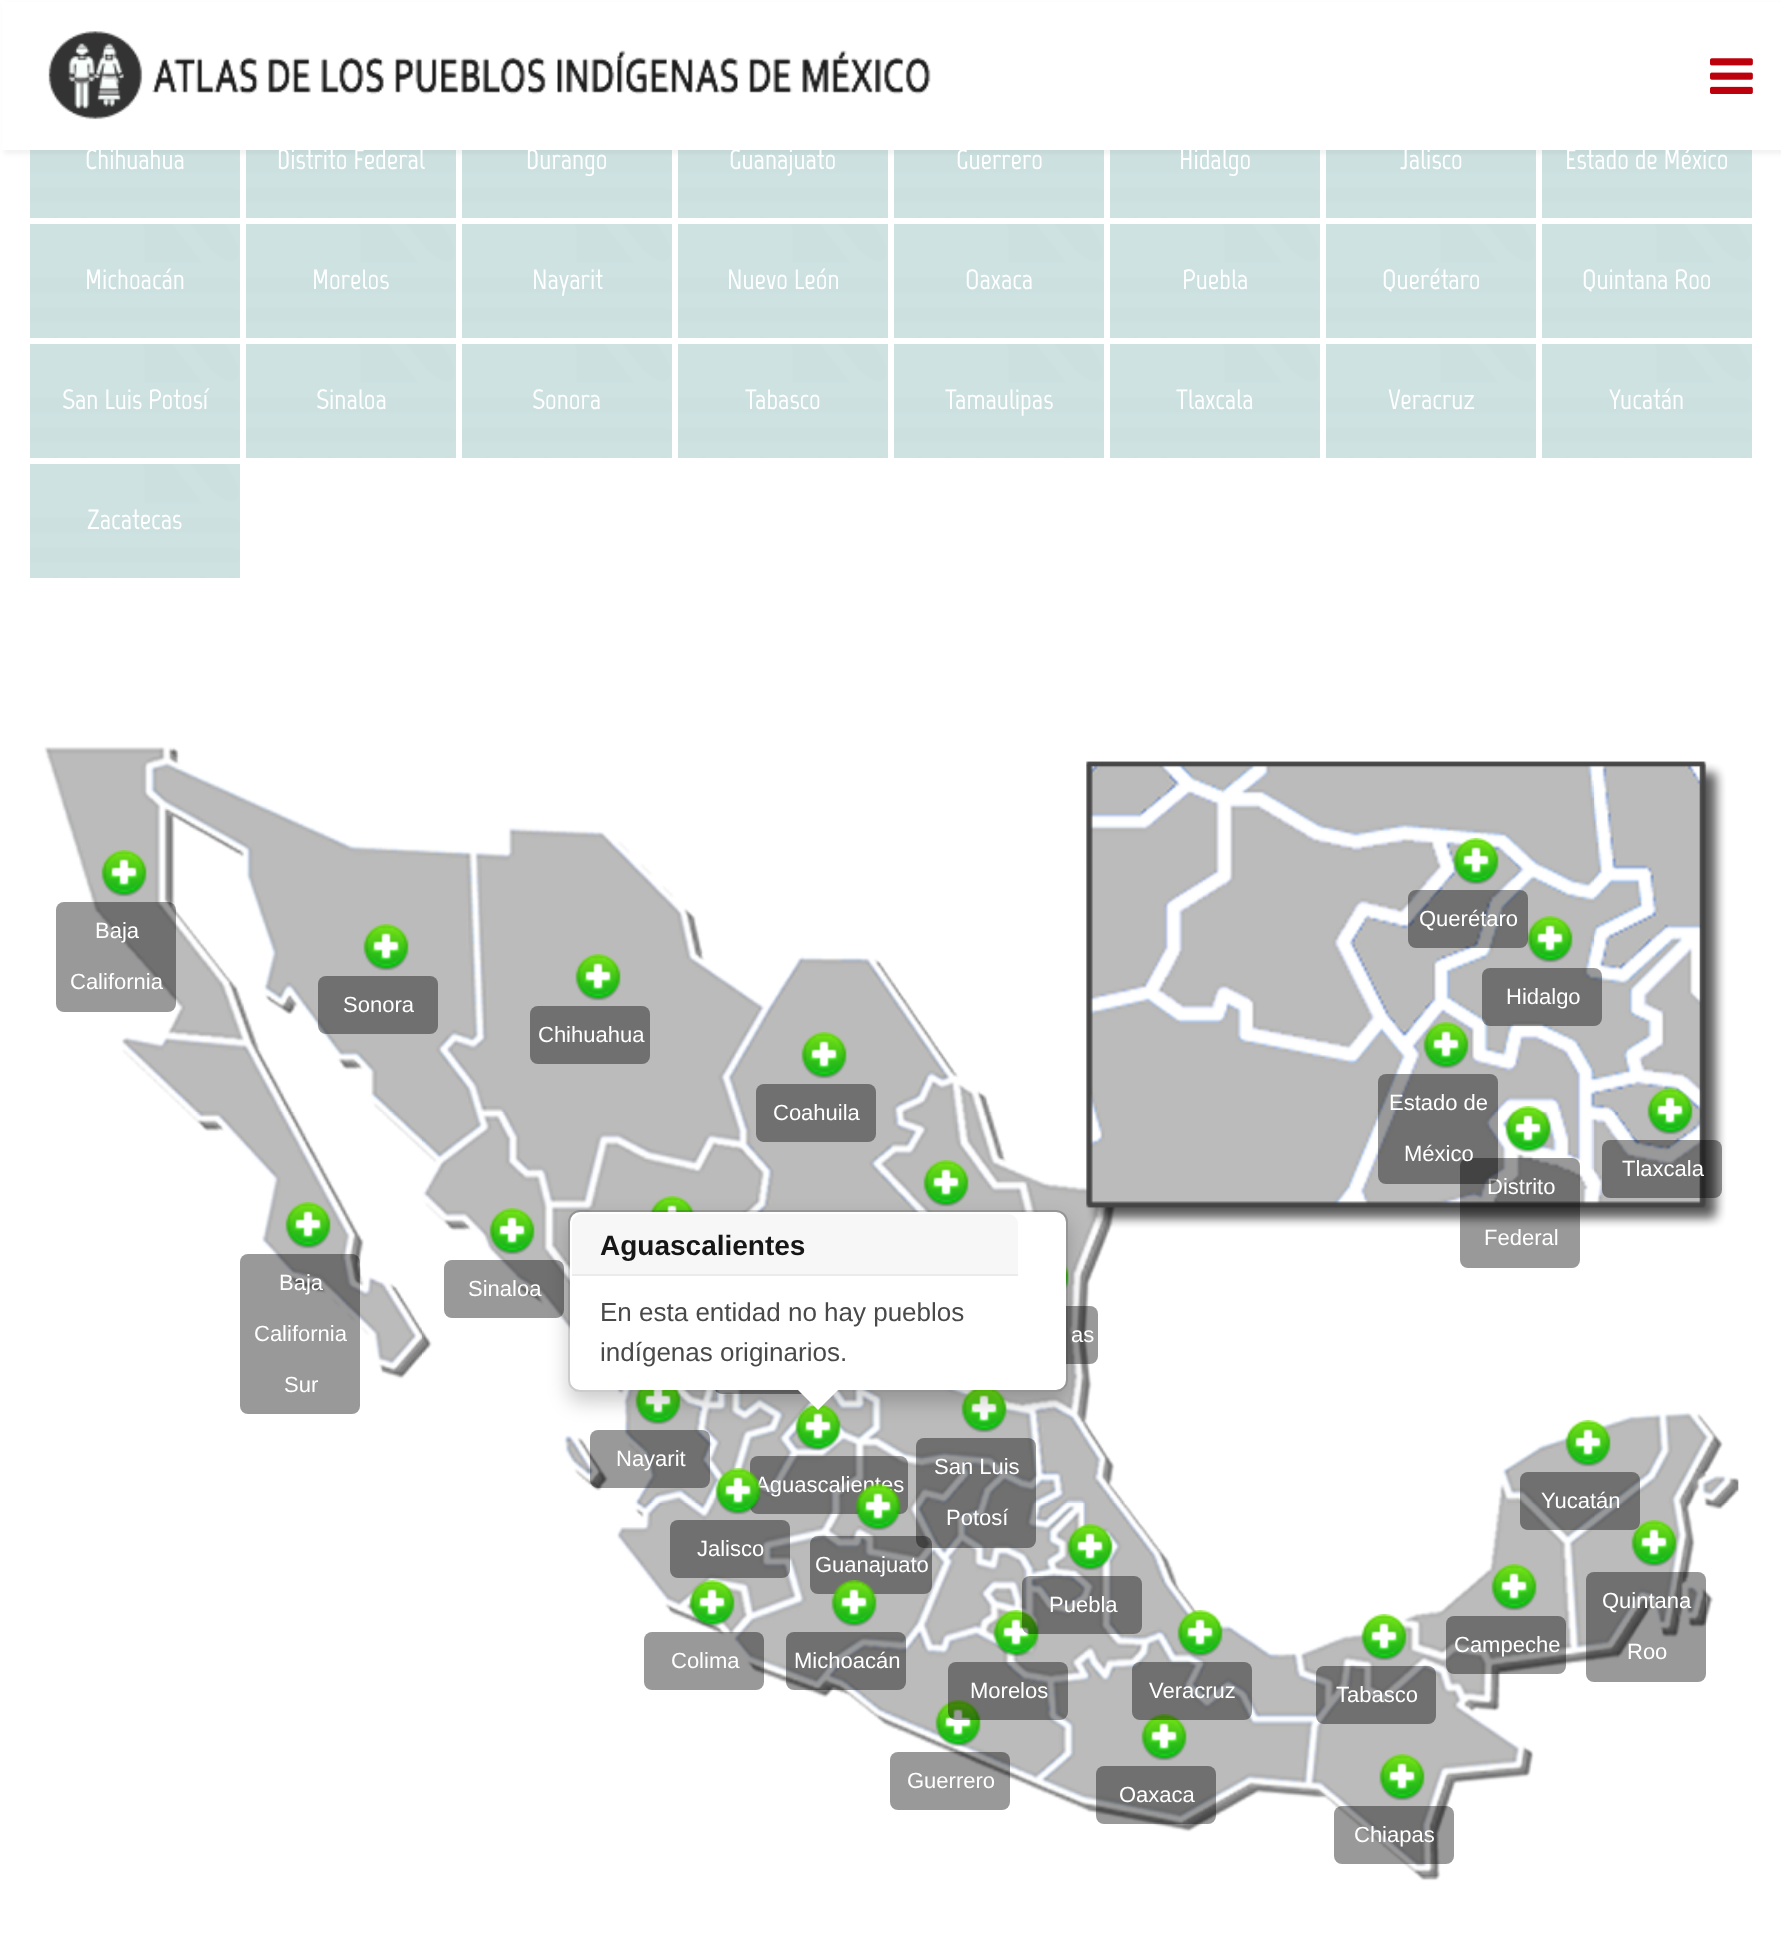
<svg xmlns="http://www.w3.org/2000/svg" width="1781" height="1949">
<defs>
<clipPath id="clip1"><path d="M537 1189h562v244h-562zm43 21h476c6.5 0 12 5.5 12 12v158c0 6.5-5.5 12-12 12h-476c-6.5 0-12-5.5-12-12v-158c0-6.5 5.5-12 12-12z" clip-rule="evenodd"/></clipPath>
</defs>
<rect width="100%" height="100%" fill="#fff"/>
<image x="30" y="150" width="210" height="68" href="media/3.png"/>
<image x="246" y="150" width="210" height="68" href="media/4.png"/>
<image x="462" y="150" width="210" height="68" href="media/3.png"/>
<image x="678" y="150" width="210" height="68" href="media/3.png"/>
<image x="894" y="150" width="210" height="68" href="media/4.png"/>
<image x="1110" y="150" width="210" height="68" href="media/3.png"/>
<image x="1326" y="150" width="210" height="68" href="media/4.png"/>
<image x="1542" y="150" width="210" height="68" href="media/3.png"/>
<rect x="4" y="4" width="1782" height="150" fill="#0000000d" filter="blur(2px)"/>
<rect x="2" y="2" width="1779" height="148" fill="#fff"/>
<image x="48" y="31" width="883" height="89" href="media/1.png"/>
<image x="1710" y="58" width="43" height="36" href="media/2.png"/>
<text x="85" y="169" style="font-family:Marvel;font-size:28px;font-weight:bold;fill:#fff">Chihuahua</text>
<text x="277" y="169" style="font-family:Marvel;font-size:28px;font-weight:bold;fill:#fff">Distrito Federal</text>
<text x="526" y="169" style="font-family:Marvel;font-size:28px;font-weight:bold;fill:#fff">Durango</text>
<text x="729" y="169" style="font-family:Marvel;font-size:28px;font-weight:bold;fill:#fff">Guanajuato</text>
<text x="956" y="169" style="font-family:Marvel;font-size:28px;font-weight:bold;fill:#fff">Guerrero</text>
<text x="1179" y="169" style="font-family:Marvel;font-size:28px;font-weight:bold;fill:#fff">Hidalgo</text>
<text x="1400" y="169" style="font-family:Marvel;font-size:28px;font-weight:bold;fill:#fff">Jalisco</text>
<text x="1565" y="169" style="font-family:Marvel;font-size:28px;font-weight:bold;fill:#fff">Estado de México</text>
<image x="30" y="224" width="210" height="114" href="media/5.png"/>
<text x="85" y="289" style="font-family:Marvel;font-size:28px;font-weight:bold;fill:#fff">Michoacán</text>
<image x="246" y="224" width="210" height="114" href="media/6.png"/>
<text x="312" y="289" style="font-family:Marvel;font-size:28px;font-weight:bold;fill:#fff">Morelos</text>
<image x="462" y="224" width="210" height="114" href="media/5.png"/>
<text x="532" y="289" style="font-family:Marvel;font-size:28px;font-weight:bold;fill:#fff">Nayarit</text>
<image x="678" y="224" width="210" height="114" href="media/5.png"/>
<text x="727" y="289" style="font-family:Marvel;font-size:28px;font-weight:bold;fill:#fff">Nuevo León</text>
<image x="894" y="224" width="210" height="114" href="media/6.png"/>
<text x="965" y="289" style="font-family:Marvel;font-size:28px;font-weight:bold;fill:#fff">Oaxaca</text>
<image x="1110" y="224" width="210" height="114" href="media/6.png"/>
<text x="1182" y="289" style="font-family:Marvel;font-size:28px;font-weight:bold;fill:#fff">Puebla</text>
<image x="1326" y="224" width="210" height="114" href="media/6.png"/>
<text x="1382" y="289" style="font-family:Marvel;font-size:28px;font-weight:bold;fill:#fff">Querétaro</text>
<image x="1542" y="224" width="210" height="114" href="media/5.png"/>
<text x="1582" y="289" style="font-family:Marvel;font-size:28px;font-weight:bold;fill:#fff">Quintana Roo</text>
<image x="30" y="344" width="210" height="114" href="media/5.png"/>
<text x="62" y="409" style="font-family:Marvel;font-size:28px;font-weight:bold;fill:#fff">San Luis Potosí</text>
<image x="246" y="344" width="210" height="114" href="media/6.png"/>
<text x="316" y="409" style="font-family:Marvel;font-size:28px;font-weight:bold;fill:#fff">Sinaloa</text>
<image x="462" y="344" width="210" height="114" href="media/5.png"/>
<text x="532" y="409" style="font-family:Marvel;font-size:28px;font-weight:bold;fill:#fff">Sonora</text>
<image x="678" y="344" width="210" height="114" href="media/5.png"/>
<text x="745" y="409" style="font-family:Marvel;font-size:28px;font-weight:bold;fill:#fff">Tabasco</text>
<image x="894" y="344" width="210" height="114" href="media/6.png"/>
<text x="945" y="409" style="font-family:Marvel;font-size:28px;font-weight:bold;fill:#fff">Tamaulipas</text>
<image x="1110" y="344" width="210" height="114" href="media/6.png"/>
<text x="1176" y="409" style="font-family:Marvel;font-size:28px;font-weight:bold;fill:#fff">Tlaxcala</text>
<image x="1326" y="344" width="210" height="114" href="media/6.png"/>
<text x="1388" y="409" style="font-family:Marvel;font-size:28px;font-weight:bold;fill:#fff">Veracruz</text>
<image x="1542" y="344" width="210" height="114" href="media/5.png"/>
<text x="1609" y="409" style="font-family:Marvel;font-size:28px;font-weight:bold;fill:#fff">Yucatán</text>
<image x="30" y="464" width="210" height="114" href="media/7.png"/>
<text x="87" y="529" style="font-family:Marvel;font-size:28px;font-weight:bold;fill:#fff">Zacatecas</text>
<image x="44" y="746" width="1695" height="1135" href="media/8.png"/>
<image x="101" y="850" width="46" height="47" href="media/9.png"/>
<rect x="56" y="902" width="120" height="110" rx="8" fill="#00000066"/>
<text x="95" y="938" style="font-family:Liberation Sans;font-size:22px;fill:#fff">Baja</text>
<text x="70" y="989" style="font-family:Liberation Sans;font-size:22px;fill:#fff">California</text>
<image x="1453" y="838" width="46" height="47" href="media/10.png"/>
<image x="1527" y="916" width="46" height="47" href="media/9.png"/>
<rect x="1408" y="890" width="120" height="58" rx="8" fill="#00000066"/>
<text x="1419" y="926" style="font-family:Liberation Sans;font-size:22px;fill:#fff">Querétaro</text>
<image x="363" y="924" width="46" height="47" href="media/9.png"/>
<rect x="318" y="976" width="120" height="58" rx="8" fill="#00000066"/>
<text x="343" y="1012" style="font-family:Liberation Sans;font-size:22px;fill:#fff">Sonora</text>
<rect x="1482" y="968" width="120" height="58" rx="8" fill="#00000066"/>
<text x="1506" y="1004" style="font-family:Liberation Sans;font-size:22px;fill:#fff">Hidalgo</text>
<image x="575" y="954" width="46" height="47" href="media/9.png"/>
<rect x="530" y="1006" width="120" height="58" rx="8" fill="#707070"/>
<text x="538" y="1042" style="font-family:Liberation Sans;font-size:22px;fill:#fff">Chihuahua</text>
<image x="801" y="1032" width="46" height="47" href="media/9.png"/>
<rect x="756" y="1084" width="120" height="58" rx="8" fill="#707070"/>
<text x="773" y="1120" style="font-family:Liberation Sans;font-size:22px;fill:#fff">Coahuila</text>
<image x="1423" y="1022" width="46" height="47" href="media/11.png"/>
<rect x="1460" y="1158" width="120" height="110" rx="8" fill="#00000066"/>
<text x="1487" y="1194" style="font-family:Liberation Sans;font-size:22px;fill:#fff">Distrito</text>
<rect x="1378" y="1074" width="120" height="110" rx="8" fill="#00000066"/>
<text x="1389" y="1110" style="font-family:Liberation Sans;font-size:22px;fill:#fff">Estado de</text>
<text x="1404" y="1161" style="font-family:Liberation Sans;font-size:22px;fill:#fff">México</text>
<image x="923" y="1160" width="46" height="47" href="media/12.png"/>
<image x="1647" y="1088" width="46" height="47" href="media/13.png"/>
<rect x="1602" y="1140" width="120" height="58" rx="8" fill="#00000066"/>
<text x="1622" y="1176" style="font-family:Liberation Sans;font-size:22px;fill:#fff">Tlaxcala</text>
<image x="649" y="1196" width="46" height="16" href="media/14.png"/>
<image x="1505" y="1106" width="46" height="47" href="media/15.png"/>
<text x="1484" y="1245" style="font-family:Liberation Sans;font-size:22px;fill:#fff">Federal</text>
<image x="285" y="1202" width="46" height="47" href="media/16.png"/>
<rect x="240" y="1254" width="120" height="160" rx="8" fill="#00000066"/>
<text x="279" y="1290" style="font-family:Liberation Sans;font-size:22px;fill:#fff">Baja</text>
<text x="254" y="1341" style="font-family:Liberation Sans;font-size:22px;fill:#fff">California</text>
<text x="284" y="1392" style="font-family:Liberation Sans;font-size:22px;fill:#fff">Sur</text>
<image x="489" y="1208" width="46" height="47" href="media/17.png"/>
<rect x="444" y="1260" width="120" height="58" rx="8" fill="#00000066"/>
<text x="468" y="1296" style="font-family:Liberation Sans;font-size:22px;fill:#fff">Sinaloa</text>
<rect x="714" y="1336" width="120" height="58" rx="8" fill="#00000066"/>
<image x="1066" y="1264" width="3" height="26" href="media/18.png"/>
<rect x="978" y="1306" width="120" height="58" rx="8" fill="#00000066"/>
<image x="635" y="1390" width="46" height="35" href="media/19.png"/>
<rect x="590" y="1430" width="120" height="58" rx="8" fill="#00000066"/>
<image x="795" y="1404" width="46" height="47" href="media/20.png"/>
<image x="961" y="1390" width="46" height="43" href="media/21.png"/>
<g clip-path="url(#clip1)">
<rect x="568" y="1220" width="500" height="182" rx="12" fill="#00000033" filter="blur(10px)"/>
</g>
<rect x="570" y="1212" width="496" height="178" rx="10" fill="#fff"/>
<rect x="569" y="1211" width="498" height="180" rx="11" fill="none" stroke="#00000033" stroke-width="2"/>
<path d="M582 1214h426c5.5 0 10 4.5 10 10v52h-446v-52c0-5.5 4.5-10 10-10z" fill="#f7f7f7"/>
<rect x="572" y="1274" width="446" height="2" fill="#ebebeb"/>
<text x="600" y="1255" style="font-family:Arimo;font-size:28px;font-weight:bold;fill:#161616">Aguascalientes</text>
<text x="600" y="1321" style="font-family:Liberation Sans;font-size:26px;fill:#494949">En esta entidad no hay pueblos</text>
<text x="600" y="1361" style="font-family:Liberation Sans;font-size:26px;fill:#494949">indígenas originarios.</text>
<path d="M798 1390h40l-20 20z" fill="#fff"/>
<text x="1071" y="1342" style="font-family:Liberation Sans;font-size:22px;fill:#fff">as</text>
<text x="616" y="1466" style="font-family:Liberation Sans;font-size:22px;fill:#fff">Nayarit</text>
<rect x="750" y="1456" width="158" height="58" rx="8" fill="#00000066"/>
<text x="755" y="1492" style="font-family:Liberation Sans;font-size:22px;fill:#fff">Aguascalientes</text>
<rect x="810" y="1536" width="122" height="58" rx="8" fill="#00000066"/>
<rect x="916" y="1438" width="120" height="110" rx="8" fill="#00000066"/>
<text x="934" y="1474" style="font-family:Liberation Sans;font-size:22px;fill:#fff">San Luis</text>
<text x="946" y="1525" style="font-family:Liberation Sans;font-size:22px;fill:#fff">Potosí</text>
<image x="1565" y="1420" width="46" height="47" href="media/22.png"/>
<image x="1631" y="1520" width="46" height="47" href="media/26.png"/>
<rect x="1520" y="1472" width="120" height="58" rx="8" fill="#00000066"/>
<text x="1541" y="1508" style="font-family:Liberation Sans;font-size:22px;fill:#fff">Yucatán</text>
<image x="715" y="1468" width="46" height="47" href="media/23.png"/>
<rect x="670" y="1520" width="120" height="58" rx="8" fill="#00000066"/>
<text x="697" y="1556" style="font-family:Liberation Sans;font-size:22px;fill:#fff">Jalisco</text>
<image x="855" y="1484" width="46" height="47" href="media/24.png"/>
<text x="815" y="1572" style="font-family:Liberation Sans;font-size:22px;fill:#fff">Guanajuato</text>
<image x="1067" y="1524" width="46" height="47" href="media/25.png"/>
<image x="993" y="1610" width="46" height="47" href="media/30.png"/>
<rect x="1022" y="1576" width="120" height="58" rx="8" fill="#00000066"/>
<text x="1049" y="1612" style="font-family:Liberation Sans;font-size:22px;fill:#fff">Puebla</text>
<rect x="1586" y="1572" width="120" height="110" rx="8" fill="#00000066"/>
<text x="1602" y="1608" style="font-family:Liberation Sans;font-size:22px;fill:#fff">Quintana</text>
<text x="1627" y="1659" style="font-family:Liberation Sans;font-size:22px;fill:#fff">Roo</text>
<image x="1491" y="1564" width="46" height="47" href="media/27.png"/>
<rect x="1446" y="1616" width="120" height="58" rx="8" fill="#00000066"/>
<text x="1454" y="1652" style="font-family:Liberation Sans;font-size:22px;fill:#fff">Campeche</text>
<image x="689" y="1580" width="46" height="47" href="media/28.png"/>
<rect x="644" y="1632" width="120" height="58" rx="8" fill="#00000066"/>
<text x="671" y="1668" style="font-family:Liberation Sans;font-size:22px;fill:#fff">Colima</text>
<image x="831" y="1580" width="46" height="47" href="media/29.png"/>
<rect x="786" y="1632" width="120" height="58" rx="8" fill="#00000066"/>
<text x="794" y="1668" style="font-family:Liberation Sans;font-size:22px;fill:#fff">Michoacán</text>
<image x="935" y="1700" width="46" height="47" href="media/33.png"/>
<rect x="948" y="1662" width="120" height="58" rx="8" fill="#00000066"/>
<text x="970" y="1698" style="font-family:Liberation Sans;font-size:22px;fill:#fff">Morelos</text>
<image x="1177" y="1610" width="46" height="47" href="media/31.png"/>
<image x="1141" y="1714" width="46" height="47" href="media/9.png"/>
<rect x="1132" y="1662" width="120" height="58" rx="8" fill="#00000066"/>
<text x="1149" y="1698" style="font-family:Liberation Sans;font-size:22px;fill:#fff">Veracruz</text>
<image x="1361" y="1614" width="46" height="47" href="media/32.png"/>
<rect x="1316" y="1666" width="120" height="58" rx="8" fill="#00000066"/>
<text x="1336" y="1702" style="font-family:Liberation Sans;font-size:22px;fill:#fff">Tabasco</text>
<rect x="890" y="1752" width="120" height="58" rx="8" fill="#00000066"/>
<text x="907" y="1788" style="font-family:Liberation Sans;font-size:22px;fill:#fff">Guerrero</text>
<rect x="1096" y="1766" width="120" height="58" rx="8" fill="#00000066"/>
<text x="1119" y="1802" style="font-family:Liberation Sans;font-size:22px;fill:#fff">Oaxaca</text>
<image x="1379" y="1754" width="46" height="47" href="media/9.png"/>
<rect x="1334" y="1806" width="120" height="58" rx="8" fill="#00000066"/>
<text x="1354" y="1842" style="font-family:Liberation Sans;font-size:22px;fill:#fff">Chiapas</text>
</svg>
